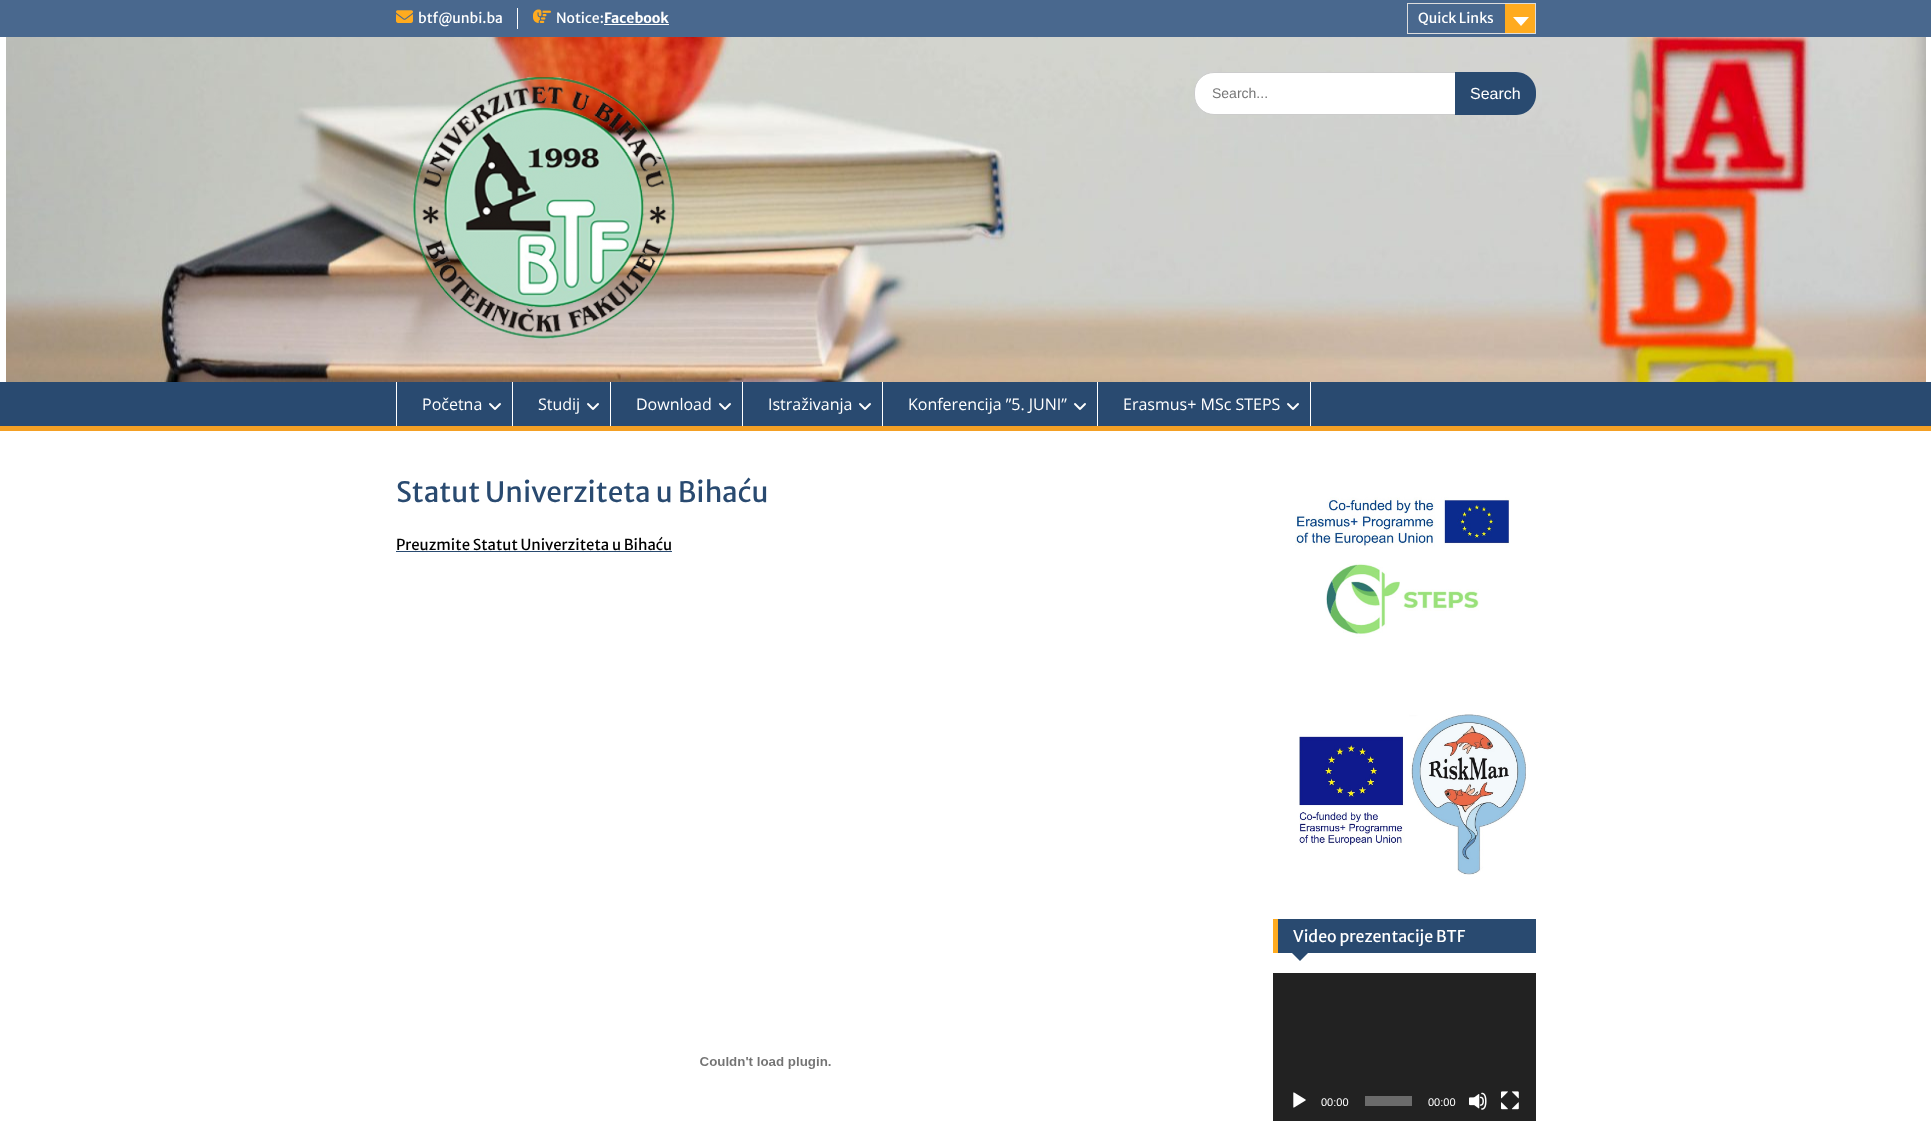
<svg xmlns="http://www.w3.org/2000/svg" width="1931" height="1131">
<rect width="100%" height="100%" fill="#fff"/>
<rect width="1931" height="37" fill="#49688e"/>
<image x="396" y="10" width="17" height="13" href="media/1.png"/>
<text x="418" y="23" style="font-family:Merriweather Sans;font-size:14px;fill:#fff">btf@unbi.ba</text>
<rect x="517" y="8" width="1" height="21" fill="#fff"/>
<image x="533" y="9" width="18" height="14" href="media/2.png"/>
<text x="556" y="23" style="font-family:Merriweather Sans;font-size:14px;fill:#fff">Notice:</text>
<text x="604" y="23" style="font-family:Merriweather Sans;font-size:14px;font-weight:bold;fill:#fff">Facebook</text>
<rect x="604" y="24" width="65" height="1" fill="#fff"/>
<rect x="1407.5" y="3.5" width="128" height="30" fill="none" stroke="#ddd"/>
<text x="1418" y="23" style="font-family:Merriweather Sans;font-size:14px;fill:#fff">Quick Links</text>
<rect x="1505" y="4" width="30" height="29" fill="#ffab1f"/>
<path d="M1513 17h16l-8 9z" fill="#fff"/>
<image x="6" y="37" width="1920" height="345" href="media/3.png"/>
<image x="413" y="77" width="262" height="262" href="media/4.png"/>
<rect x="1194.5" y="72.5" width="341" height="42" rx="19.5" fill="#fff" stroke="#ccc"/>
<text x="1212" y="98" style="font-family:Liberation Sans;font-size:14px;fill:#757575">Search...</text>
<path d="M1455 72h61c11 0 20 9 20 20v3c0 11-9 20-20 20h-61z" fill="#294a70"/>
<text x="1470" y="99" style="font-family:Liberation Sans;font-size:16px;fill:#fff">Search</text>
<rect y="382" width="1931" height="44" fill="#294a70"/>
<rect y="426" width="1931" height="5" fill="#f4a024"/>
<rect x="512" y="382" width="1" height="44" fill="#fff"/>
<rect x="396" y="382" width="1" height="44" fill="#fff"/>
<text x="422" y="410" style="font-family:Open Sans;font-size:16px;fill:#fff">Početna</text>
<image x="489" y="403" width="12" height="7" href="media/5.png"/>
<rect x="610" y="382" width="1" height="44" fill="#fff"/>
<text x="538" y="410" style="font-family:Open Sans;font-size:16px;fill:#fff">Studij</text>
<image x="587" y="403" width="12" height="7" href="media/5.png"/>
<rect x="742" y="382" width="1" height="44" fill="#fff"/>
<text x="636" y="410" style="font-family:Open Sans;font-size:16px;fill:#fff">Download</text>
<image x="719" y="403" width="12" height="7" href="media/5.png"/>
<rect x="882" y="382" width="1" height="44" fill="#fff"/>
<text x="768" y="410" style="font-family:Open Sans;font-size:16px;fill:#fff">Istraživanja</text>
<image x="859" y="403" width="12" height="7" href="media/5.png"/>
<rect x="1097" y="382" width="1" height="44" fill="#fff"/>
<text x="908" y="410" style="font-family:Open Sans;font-size:16px;fill:#fff">Konferencija ”5. JUNI”</text>
<image x="1074" y="403" width="12" height="7" href="media/5.png"/>
<rect x="1310" y="382" width="1" height="44" fill="#fff"/>
<text x="1123" y="410" style="font-family:Open Sans;font-size:16px;fill:#fff">Erasmus+ MSc STEPS</text>
<image x="1287" y="403" width="12" height="7" href="media/5.png"/>
<text x="396" y="502" style="font-family:Merriweather Sans;font-size:28px;fill:#294a70">Statut Univerziteta u Bihaću</text>
<text x="396" y="550" style="font-family:Merriweather Sans;font-size:15px;fill:#000">Preuzmite Statut Univerziteta u Bihaću</text>
<rect x="396" y="551" width="276" height="1" fill="#294a70"/>
<image x="700" y="1057" width="131" height="12" href="media/6.png"/>
<image x="1295" y="497" width="215" height="140" href="media/7.png"/>
<image x="1299" y="714" width="227" height="161" href="media/8.png"/>
<rect x="1278" y="919" width="258" height="34" fill="#294a70"/>
<rect x="1273" y="919" width="5" height="34" fill="#ffab1f"/>
<text x="1293" y="942" style="font-family:Merriweather Sans;font-size:16px;fill:#fff">Video prezentacije BTF</text>
<path d="M1291 952h18l-9 9z" fill="#294a70"/>
<rect x="1273" y="973" width="263" height="148" fill="#222"/>
<image x="1293" y="1092" width="13" height="16" href="media/9.png"/>
<text x="1321" y="1106" style="font-family:Liberation Sans;font-size:11px;fill:#fff">00:00</text>
<rect x="1365" y="1096" width="47" height="10" fill="#6b6b6b"/>
<text x="1428" y="1106" style="font-family:Liberation Sans;font-size:11px;fill:#fff">00:00</text>
<image x="1469" y="1092" width="18" height="18" href="media/10.png"/>
<image x="1501" y="1091" width="18" height="19" href="media/11.png"/>
</svg>
